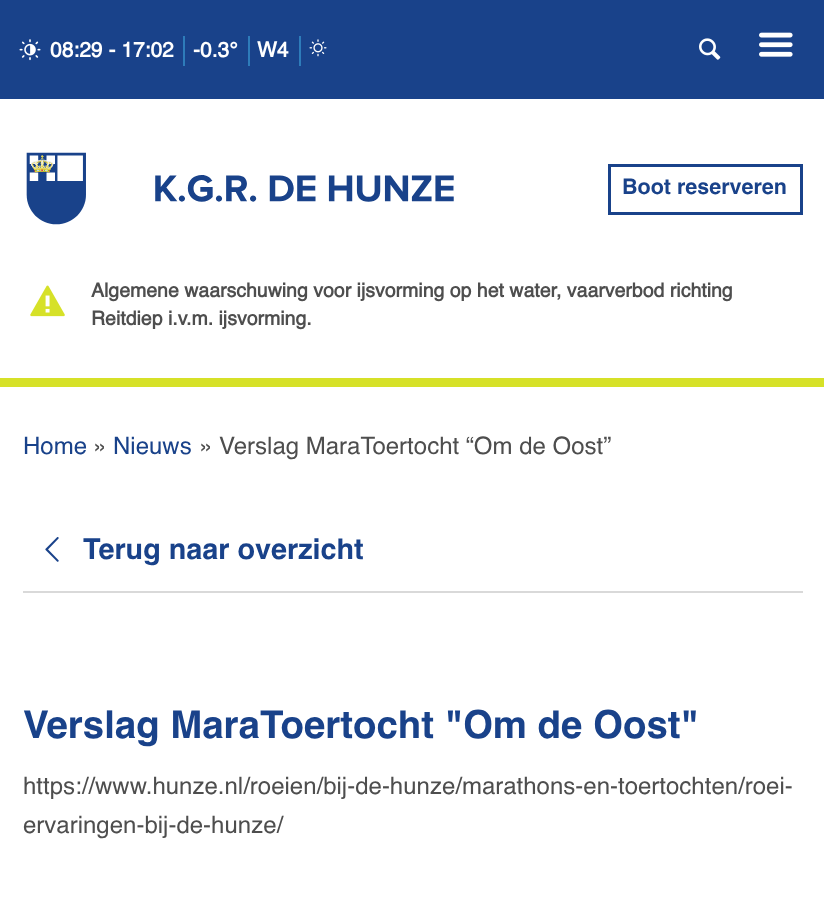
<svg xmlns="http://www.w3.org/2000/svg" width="824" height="901">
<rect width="100%" height="100%" fill="#fff"/>
<rect width="824" height="99" fill="#19428a"/>
<rect x="183" y="36" width="2" height="30" fill="#2e7cba"/>
<image x="19" y="39" width="22" height="22" href="media/1.png"/>
<text x="50" y="57" style="font-family:Helvetica;font-size:21px;font-weight:bold;fill:#fff">08:29 - 17:02</text>
<rect x="248" y="36" width="2" height="30" fill="#2e7cba"/>
<text x="193" y="57" style="font-family:Helvetica;font-size:21px;font-weight:bold;fill:#fff">-0.3°</text>
<rect x="299" y="36" width="2" height="30" fill="#2e7cba"/>
<text x="257" y="57" style="font-family:Helvetica;font-size:21px;font-weight:bold;fill:#fff">W4</text>
<image x="309" y="39" width="18" height="18" href="media/2.png"/>
<image x="699" y="38" width="22" height="22" href="media/3.png"/>
<image x="759" y="32" width="34" height="25" href="media/4.png"/>
<image x="26" y="152" width="428" height="73" href="media/5.png"/>
<rect x="609.5" y="165.5" width="192" height="48" fill="none" stroke="#19428a" stroke-width="3"/>
<text x="622" y="194" style="font-family:'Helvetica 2';font-size:21.5px;font-weight:bold;fill:#19428a">Boot reserveren</text>
<image x="30" y="285" width="35" height="32" href="media/6.png"/>
<text x="91" y="297" style="font-family:Helvetica;font-size:19.5px;font-weight:bold;fill:#4e4e4e">Algemene waarschuwing voor ijsvorming op het water, vaarverbod richting</text>
<text x="91" y="325" style="font-family:Helvetica;font-size:19.5px;font-weight:bold;fill:#4e4e4e">Reitdiep i.v.m. ijsvorming.</text>
<rect y="378" width="824" height="9" fill="#d6e128"/>
<text x="23" y="454" style="font-family:Helvetica;font-size:24px;fill:#19428a">Home</text>
<text x="93" y="454" style="font-family:Helvetica;font-size:24px;fill:#4e4e4e">»</text>
<text x="113" y="454" style="font-family:Helvetica;font-size:24px;fill:#19428a">Nieuws</text>
<text x="199" y="454" style="font-family:Helvetica;font-size:24px;fill:#4e4e4e">» Verslag MaraToertocht “Om de Oost”</text>
<rect x="23" y="591" width="780" height="2" fill="#d9d9d9"/>
<image x="45" y="537" width="14" height="25" href="media/7.png"/>
<text x="83" y="559" style="font-family:'Helvetica 2';font-size:28.75px;font-weight:bold;fill:#19428a">Terug naar overzicht</text>
<text x="23" y="738" style="font-family:'Helvetica 2';font-size:38.4px;font-weight:bold;fill:#19428a">Verslag MaraToertocht "Om de Oost"</text>
<text x="23" y="794" style="font-family:Helvetica;font-size:24px;fill:#4e4e4e">https://www.hunze.nl/roeien/bij-de-hunze/marathons-en-toertochten/roei-</text>
<text x="23" y="833" style="font-family:Helvetica;font-size:24px;fill:#4e4e4e">ervaringen-bij-de-hunze/</text>
</svg>
